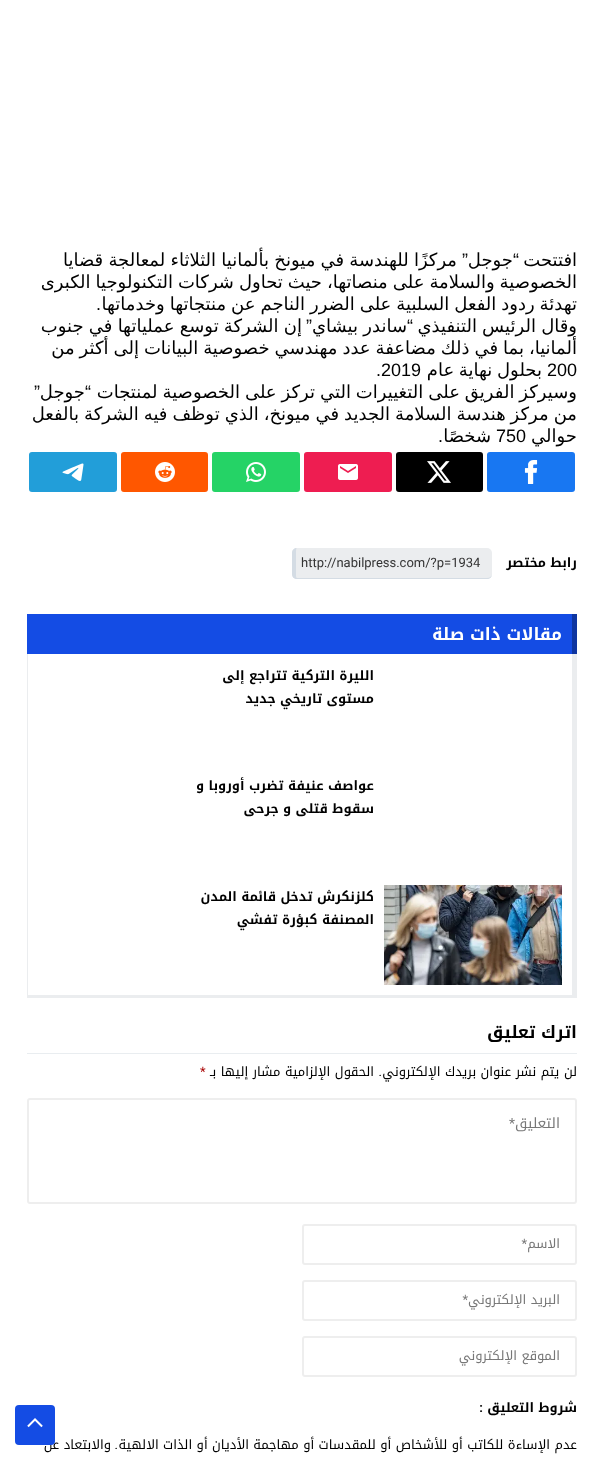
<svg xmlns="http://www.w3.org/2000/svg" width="604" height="1460">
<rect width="100%" height="100%" fill="#fff"/>
<text x="577" y="266" style="font-family:DejaVu Sans;font-size:18px;direction:rtl;fill:#000">افتتحت</text>
<text x="519" y="266" style="font-family:Liberation Sans;font-size:18px;direction:rtl;fill:#000">“</text>
<text x="513" y="266" style="font-family:DejaVu Sans;font-size:18px;direction:rtl;fill:#000">جوجل</text>
<text x="468" y="266" style="font-family:Liberation Sans;font-size:18px;direction:rtl;fill:#000">”</text>
<text x="457" y="266" word-spacing="-0.5" style="font-family:DejaVu Sans;font-size:18px;direction:rtl;fill:#000">مركزًا للهندسة في ميونخ بألمانيا الثلاثاء لمعالجة قضايا</text>
<text x="577" y="288" word-spacing="-0.75" style="font-family:DejaVu Sans;font-size:18px;direction:rtl;fill:#000">الخصوصية والسلامة على منصاتها، حيث تحاول شركات التكنولوجيا الكبرى</text>
<text x="577" y="310" word-spacing="-0.75" style="font-family:DejaVu Sans;font-size:18px;direction:rtl;fill:#000">تهدئة ردود الفعل السلبية على الضرر الناجم عن منتجاتها وخدماتها</text>
<text x="101" y="310" style="font-family:Liberation Sans;font-size:18px;direction:rtl;fill:#000">.</text>
<text x="577" y="332" word-spacing="-0.5" style="font-family:DejaVu Sans;font-size:18px;direction:rtl;fill:#000">وقال الرئيس التنفيذي</text>
<text x="413" y="332" style="font-family:Liberation Sans;font-size:18px;direction:rtl;fill:#000">“</text>
<text x="407" y="332" word-spacing="-0.5" style="font-family:DejaVu Sans;font-size:18px;direction:rtl;fill:#000">ساندر بيشاي</text>
<text x="312" y="332" style="font-family:Liberation Sans;font-size:18px;direction:rtl;fill:#000">”</text>
<text x="302" y="332" word-spacing="-0.5" style="font-family:DejaVu Sans;font-size:18px;direction:rtl;fill:#000">إن الشركة توسع عملياتها في جنوب</text>
<text x="577" y="354" word-spacing="-0.75" style="font-family:DejaVu Sans;font-size:18px;direction:rtl;fill:#000">ألمانيا، بما في ذلك مضاعفة عدد مهندسي خصوصية البيانات إلى أكثر من</text>
<text x="547" y="376" style="font-family:Liberation Sans;font-size:18px;fill:#000">200</text>
<text x="542" y="376" word-spacing="-1" style="font-family:DejaVu Sans;font-size:18px;direction:rtl;fill:#000">بحلول نهاية عام</text>
<text x="376" y="376" style="font-family:Liberation Sans;font-size:18px;fill:#000">.2019</text>
<text x="577" y="398" word-spacing="-0.75" style="font-family:DejaVu Sans;font-size:18px;direction:rtl;fill:#000">وسيركز الفريق على التغييرات التي تركز على الخصوصية لمنتجات</text>
<text x="91" y="398" style="font-family:Liberation Sans;font-size:18px;direction:rtl;fill:#000">“</text>
<text x="85" y="398" style="font-family:DejaVu Sans;font-size:18px;direction:rtl;fill:#000">جوجل</text>
<text x="40" y="398" style="font-family:Liberation Sans;font-size:18px;direction:rtl;fill:#000">”</text>
<text x="577" y="420" word-spacing="-0.75" style="font-family:DejaVu Sans;font-size:18px;direction:rtl;fill:#000">من مركز هندسة السلامة الجديد في ميونخ، الذي توظف فيه الشركة بالفعل</text>
<text x="577" y="442" style="font-family:DejaVu Sans;font-size:18px;direction:rtl;fill:#000">حوالي</text>
<text x="496" y="442" style="font-family:Liberation Sans;font-size:18px;fill:#000">750</text>
<text x="491" y="442" style="font-family:DejaVu Sans;font-size:18px;direction:rtl;fill:#000">شخصًا</text>
<text x="443" y="442" style="font-family:Liberation Sans;font-size:18px;direction:rtl;fill:#000">.</text>
<rect x="486" y="451" width="90" height="42" rx="4" fill="#1877f2" stroke="#fff" stroke-width="2"/>
<image x="524" y="460" width="14" height="24" href="media/1.png"/>
<rect x="395" y="451" width="89" height="42" rx="4" fill="#000" stroke="#fff" stroke-width="2"/>
<image x="427" y="461" width="24" height="22" href="media/2.png"/>
<rect x="303" y="451" width="90" height="42" rx="4" fill="#ee1d51" stroke="#fff" stroke-width="2"/>
<image x="338" y="464" width="20" height="16" href="media/3.png"/>
<rect x="211" y="451" width="90" height="42" rx="4" fill="#25d366" stroke="#fff" stroke-width="2"/>
<image x="246" y="462" width="20" height="20" href="media/4.png"/>
<rect x="120" y="451" width="89" height="42" rx="4" fill="#ff5700" stroke="#fff" stroke-width="2"/>
<image x="155" y="462" width="20" height="20" href="media/5.png"/>
<rect x="28" y="451" width="90" height="42" rx="4" fill="#229ed9" stroke="#fff" stroke-width="2"/>
<image x="62" y="463" width="22" height="18" href="media/6.png"/>
<text x="577" y="567" style="font-family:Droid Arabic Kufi;font-size:13px;font-weight:bold;direction:rtl;fill:#000">رابط مختصر</text>
<rect x="292" y="548" width="200" height="31" rx="5" fill="#ebedef"/>
<path d="M297 548h190c3 0 5 2 5 5v21c0 3-2 5-5 5h-190c-3 0-5-2-5-5v-21c0-3 2-5 5-5zm0 0h190c3 0 5 2 5 5v21c0 2-2 4-5 4h-190c-1 0-1-2-1-4v-21c0-3 0-5 1-5z" fill="#d4dce4" fill-rule="evenodd"/>
<text x="301" y="567" style="font-family:Roboto;font-size:13px;fill:#333">http://nabilpress.com/?p=1934</text>
<rect x="27" y="614" width="545" height="40" fill="#144ce4"/>
<rect x="572" y="614" width="5" height="40" fill="#0e35a0"/>
<text x="562" y="640" style="font-family:Droid Arabic Kufi;font-size:17px;font-weight:bold;direction:rtl;fill:#fff">مقالات ذات صلة</text>
<rect x="572" y="654" width="5" height="344" fill="#ebedef"/>
<rect x="27" y="995" width="550" height="3" fill="#ebedef"/>
<rect x="27" y="654" width="1" height="344" fill="#ebedef"/>
<text x="374" y="680" style="font-family:Droid Arabic Kufi;font-size:13px;font-weight:bold;direction:rtl;fill:#000">الليرة التركية تتراجع إلى</text>
<text x="374" y="703" style="font-family:Droid Arabic Kufi;font-size:13px;font-weight:bold;direction:rtl;fill:#000">مستوى تاريخي جديد</text>
<text x="374" y="790" style="font-family:Droid Arabic Kufi;font-size:13px;font-weight:bold;direction:rtl;fill:#000">عواصف عنيفة تضرب أوروبا و</text>
<text x="374" y="813" style="font-family:Droid Arabic Kufi;font-size:13px;font-weight:bold;direction:rtl;fill:#000">سقوط قتلى و جرحى</text>
<image x="384" y="885" width="178" height="100" href="media/7.png"/>
<text x="374" y="901" style="font-family:Droid Arabic Kufi;font-size:13px;font-weight:bold;direction:rtl;fill:#000">كلزنكرش تدخل قائمة المدن</text>
<text x="374" y="924" style="font-family:Droid Arabic Kufi;font-size:13px;font-weight:bold;direction:rtl;fill:#000">المصنفة كبؤرة تفشي</text>
<rect x="27" y="1053" width="550" height="1" fill="#e9edf0"/>
<text x="577" y="1038" style="font-family:Droid Arabic Kufi;font-size:17px;font-weight:bold;direction:rtl;fill:#000">اترك تعليق</text>
<text x="577" y="1076" style="font-family:Droid Arabic Kufi;font-size:13px;direction:rtl;fill:#000">لن يتم نشر عنوان بريدك الإلكتروني</text>
<text x="374" y="1076" style="font-family:Droid Arabic Kufi;font-size:13px;direction:rtl;fill:#000">الحقول الإلزامية مشار إليها بـ</text>
<text x="200" y="1076" style="font-family:Roboto;font-size:13px;fill:#a80000">*</text>
<text x="382" y="1076" style="font-family:Roboto;font-size:13px;direction:rtl;fill:#000">.</text>
<rect x="28" y="1099" width="548" height="104" rx="2" fill="none" stroke="#eee" stroke-width="2"/>
<text x="560" y="1128" style="font-family:Droid Arabic Kufi;font-size:14px;direction:rtl;fill:#777">التعليق</text>
<text x="515" y="1128" style="font-family:Roboto;font-size:14px;direction:rtl;fill:#777">*</text>
<rect x="303" y="1225" width="273" height="39" rx="2" fill="none" stroke="#eee" stroke-width="2"/>
<text x="560" y="1248" style="font-family:Droid Arabic Kufi;font-size:13px;direction:rtl;fill:#777">الاسم</text>
<text x="527" y="1248" style="font-family:Roboto;font-size:13px;direction:rtl;fill:#777">*</text>
<rect x="303" y="1281" width="273" height="39" rx="2" fill="none" stroke="#eee" stroke-width="2"/>
<text x="560" y="1304" style="font-family:Droid Arabic Kufi;font-size:13px;direction:rtl;fill:#777">البريد الإلكتروني</text>
<text x="468" y="1304" style="font-family:Roboto;font-size:13px;direction:rtl;fill:#777">*</text>
<rect x="303" y="1337" width="273" height="39" rx="2" fill="none" stroke="#eee" stroke-width="2"/>
<text x="560" y="1360" style="font-family:Droid Arabic Kufi;font-size:13px;direction:rtl;fill:#777">الموقع الإلكتروني</text>
<text x="577" y="1412" style="font-family:Droid Arabic Kufi;font-size:13px;font-weight:bold;direction:rtl;fill:#000">شروط التعليق</text>
<text x="483" y="1412" style="font-family:Roboto;font-size:13px;font-weight:bold;direction:rtl;fill:#000">:</text>
<text x="577" y="1449" style="font-family:Droid Arabic Kufi;font-size:13px;direction:rtl;fill:#000">عدم الإساءة للكاتب أو للأشخاص أو للمقدسات أو مهاجمة الأديان أو الذات الالهية</text>
<text x="118" y="1449" style="font-family:Roboto;font-size:13px;direction:rtl;fill:#000">.</text>
<text x="111" y="1449" style="font-family:Droid Arabic Kufi;font-size:13px;direction:rtl;fill:#000">والابتعاد عن</text>
<rect x="15" y="1405" width="40" height="40" rx="4" fill="#144ce4"/>
<image x="27" y="1418" width="16" height="10" href="media/8.png"/>
</svg>
